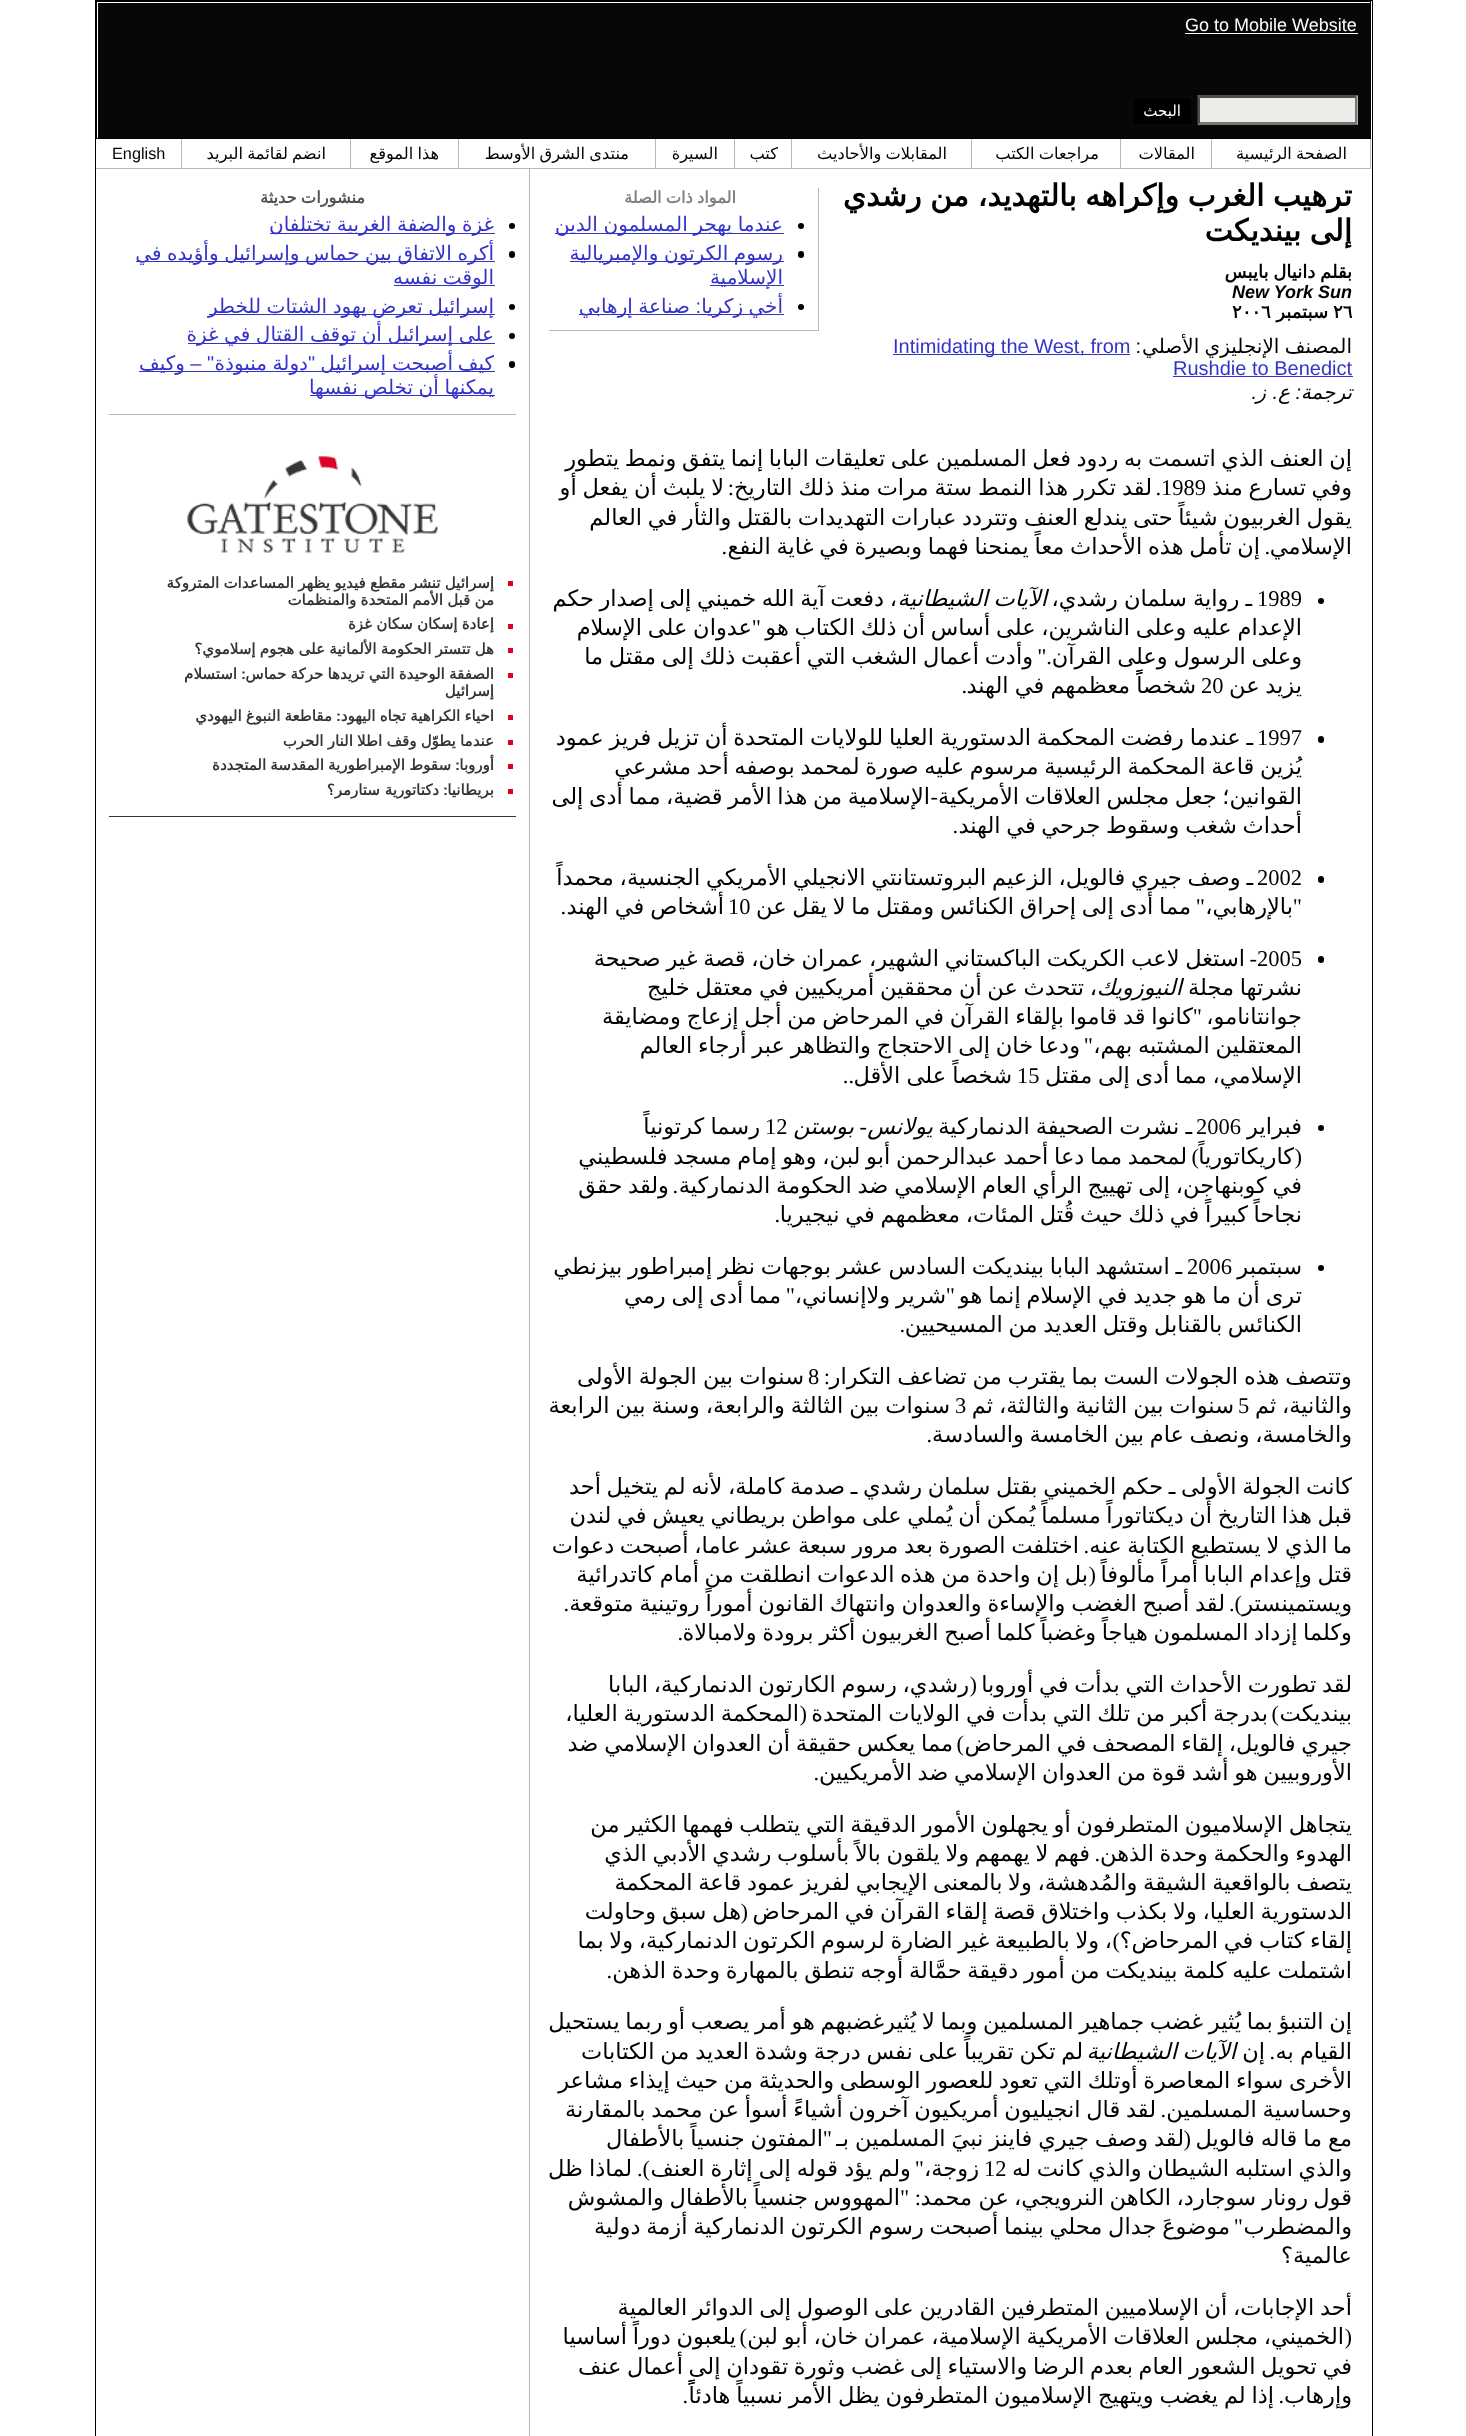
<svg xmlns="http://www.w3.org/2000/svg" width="1466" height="2436">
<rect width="100%" height="100%" fill="#fff"/>
<rect x="95.5" y="0.5" width="1277" height="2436" fill="none" stroke="#000"/>
<rect x="96.5" y="1.5" width="1274" height="137" fill="none" stroke="#000"/>
<rect x="979" y="3" width="391" height="135" fill="#090609"/>
<text x="1185" y="31" style="font-family:Liberation Sans;font-size:18px;fill:#fff">Go to Mobile Website</text>
<rect x="1185" y="33" width="173" height="1" fill="#fff"/>
<rect x="98" y="3" width="881" height="135" fill="#090609"/>
<rect x="1198" y="95" width="160" height="30" fill="#eeece9"/>
<path d="M1198 95h160l-3 3h-155z" fill="#4f4f4f"/>
<path d="M1357.5 95v30l-2.5-2.5v-25z" fill="#767676"/>
<path d="M1358 125h-160l2-3h155z" fill="#767676"/>
<path d="M1197.5 125v-30l2.5 2.5v25z" fill="#4f4f4f"/>
<rect x="1134" y="99" width="57" height="25" fill="#000"/>
<text x="1181" y="116" style="font-family:DejaVu Sans;font-size:15px;direction:rtl;fill:#fff">البحث</text>
<rect x="1370" y="139" width="1" height="30" fill="#b7b7b7"/>
<rect x="1213" y="168" width="158" height="1" fill="#b7b7b7"/>
<text x="1347" y="159" word-spacing="-1" style="font-family:DejaVu Sans;font-size:16.25px;direction:rtl;fill:#000">الصفحة الرئيسية</text>
<rect x="1211" y="139" width="1" height="30" fill="#b7b7b7"/>
<rect x="1121" y="168" width="92" height="1" fill="#b7b7b7"/>
<text x="1195" y="159" style="font-family:DejaVu Sans;font-size:16.25px;direction:rtl;fill:#000">المقالات</text>
<rect x="1120" y="139" width="1" height="30" fill="#b7b7b7"/>
<rect x="973" y="168" width="148" height="1" fill="#b7b7b7"/>
<text x="1099" y="159" word-spacing="-1" style="font-family:DejaVu Sans;font-size:16.25px;direction:rtl;fill:#000">مراجعات الكتب</text>
<rect x="971" y="139" width="1" height="30" fill="#b7b7b7"/>
<rect x="793" y="168" width="180" height="1" fill="#b7b7b7"/>
<text x="947" y="159" word-spacing="-1" style="font-family:DejaVu Sans;font-size:16.25px;direction:rtl;fill:#000">المقابلات والأحاديث</text>
<rect x="791" y="139" width="1" height="30" fill="#b7b7b7"/>
<rect x="735" y="168" width="58" height="1" fill="#b7b7b7"/>
<text x="778" y="159" style="font-family:DejaVu Sans;font-size:16.25px;direction:rtl;fill:#000">كتب</text>
<rect x="734" y="139" width="1" height="30" fill="#b7b7b7"/>
<rect x="656" y="168" width="79" height="1" fill="#b7b7b7"/>
<text x="718" y="159" style="font-family:DejaVu Sans;font-size:16.25px;direction:rtl;fill:#000">السيرة</text>
<rect x="655" y="139" width="1" height="30" fill="#b7b7b7"/>
<rect x="459" y="168" width="197" height="1" fill="#b7b7b7"/>
<text x="629" y="159" word-spacing="-1" style="font-family:DejaVu Sans;font-size:16.25px;direction:rtl;fill:#000">منتدى الشرق الأوسط</text>
<rect x="458" y="139" width="1" height="30" fill="#b7b7b7"/>
<rect x="351" y="168" width="108" height="1" fill="#b7b7b7"/>
<text x="439" y="159" word-spacing="-1" style="font-family:DejaVu Sans;font-size:16.25px;direction:rtl;fill:#000">هذا الموقع</text>
<rect x="350" y="139" width="1" height="30" fill="#b7b7b7"/>
<rect x="183" y="168" width="168" height="1" fill="#b7b7b7"/>
<text x="326" y="159" word-spacing="-1" style="font-family:DejaVu Sans;font-size:16.25px;direction:rtl;fill:#000">انضم لقائمة البريد</text>
<rect x="181" y="139" width="1" height="30" fill="#b7b7b7"/>
<rect x="96" y="168" width="87" height="1" fill="#b7b7b7"/>
<text x="112" y="159" style="font-family:Liberation Sans;font-size:16.25px;fill:#000">English</text>
<text x="1352" y="206" word-spacing="-1" style="font-family:DejaVu Sans;font-size:30px;font-weight:bold;direction:rtl;fill:#000">ترهيب الغرب وإكراهه بالتهديد، من رشدي</text>
<text x="1352" y="241" word-spacing="-1" style="font-family:DejaVu Sans;font-size:30px;font-weight:bold;direction:rtl;fill:#000">إلى بينديكت</text>
<text x="1352" y="278" word-spacing="-1" style="font-family:DejaVu Sans;font-size:18px;font-weight:bold;direction:rtl;fill:#000">بقلم دانيال بايبس</text>
<text x="1232" y="298" style="font-family:Liberation Sans;font-size:18px;font-weight:bold;font-style:italic;fill:#000">New York Sun</text>
<text x="1333" y="318" style="font-family:DejaVu Sans;font-size:18px;font-weight:bold;fill:#000">٢٦</text>
<text x="1328" y="318" style="font-family:DejaVu Sans;font-size:18px;font-weight:bold;direction:rtl;fill:#000">سبتمبر</text>
<text x="1232" y="318" style="font-family:DejaVu Sans;font-size:18px;font-weight:bold;fill:#000">٢٠٠٦</text>
<text x="1352" y="353" word-spacing="-1" style="font-family:DejaVu Sans;font-size:20px;direction:rtl;fill:#000">المصنف الإنجليزي الأصلي</text>
<text x="1141" y="353" style="font-family:Liberation Sans;font-size:20px;direction:rtl;fill:#000">:</text>
<rect x="893" y="354" width="237" height="1" fill="#33c"/>
<text x="893" y="353" style="font-family:Liberation Sans;font-size:20px;fill:#33c">Intimidating the West, from</text>
<text x="1173" y="375" style="font-family:Liberation Sans;font-size:20px;fill:#33c">Rushdie to Benedict</text>
<rect x="1173" y="376" width="180" height="1" fill="#33c"/>
<text x="1352" y="399" style="font-family:DejaVu Sans;font-size:20px;font-style:italic;direction:rtl;fill:#000">ترجمة</text>
<text x="1301" y="399" style="font-family:Liberation Sans;font-size:20px;font-style:italic;direction:rtl;fill:#000">:</text>
<text x="1290" y="399" style="font-family:DejaVu Sans;font-size:20px;font-style:italic;direction:rtl;fill:#000">ع</text>
<text x="1278" y="399" style="font-family:Liberation Sans;font-size:20px;font-style:italic;direction:rtl;fill:#000">.</text>
<text x="1257" y="399" style="font-family:Liberation Sans;font-size:20px;font-style:italic;direction:rtl;fill:#000">.</text>
<text x="1266" y="399" style="font-family:DejaVu Sans;font-size:20px;font-style:italic;direction:rtl;fill:#000">ز</text>
<rect x="818" y="188" width="1" height="143" fill="#b7b7b7"/>
<rect x="549" y="330" width="270" height="1" fill="#b7b7b7"/>
<text x="736" y="203" word-spacing="-1" style="font-family:DejaVu Sans;font-size:16.25px;font-weight:bold;direction:rtl;fill:#808080">المواد ذات الصلة</text>
<circle cx="801" cy="226" r="3" fill="#000"/>
<rect x="555" y="233" width="229" height="1" fill="#33c"/>
<text x="783" y="231" word-spacing="-0.75" style="font-family:DejaVu Sans;font-size:20px;direction:rtl;fill:#33c">عندما يهجر المسلمون الدين</text>
<rect x="798" y="251" width="6" height="7" rx="3" fill="#000"/>
<rect x="570" y="261" width="214" height="1" fill="#33c"/>
<text x="783" y="260" word-spacing="-0.75" style="font-family:DejaVu Sans;font-size:20px;direction:rtl;fill:#33c">رسوم الكرتون والإمبريالية</text>
<rect x="710" y="285" width="74" height="1" fill="#33c"/>
<text x="783" y="284" style="font-family:DejaVu Sans;font-size:20px;direction:rtl;fill:#33c">الإسلامية</text>
<circle cx="801" cy="307" r="3" fill="#000"/>
<rect x="579" y="314" width="205" height="1" fill="#33c"/>
<text x="783" y="313" word-spacing="-1" style="font-family:DejaVu Sans;font-size:20px;direction:rtl;fill:#33c">أخي زكريا</text>
<text x="701" y="313" style="font-family:Liberation Sans;font-size:20px;direction:rtl;fill:#33c">:</text>
<text x="690" y="313" word-spacing="-1" style="font-family:DejaVu Sans;font-size:20px;direction:rtl;fill:#33c">صناعة إرهابي</text>
<text x="1352" y="466" word-spacing="-1.5" style="font-family:DejaVu Sans;font-size:22.5px;direction:rtl;fill:#000">إن العنف الذي اتسمت به ردود فعل المسلمين على تعليقات البابا إنما يتفق ونمط يتطور</text>
<text x="1352" y="495" word-spacing="-1.5" style="font-family:DejaVu Sans;font-size:22.5px;direction:rtl;fill:#000">وفي تسارع منذ</text>
<text x="1161" y="495" style="font-family:Liberation Serif;font-size:22.5px;fill:#000">1989</text>
<text x="1161" y="495" style="font-family:Liberation Serif;font-size:22.5px;direction:rtl;fill:#000">.</text>
<text x="1152" y="495" word-spacing="-1.25" style="font-family:DejaVu Sans;font-size:22.5px;direction:rtl;fill:#000">لقد تكرر هذا النمط ستة مرات منذ ذلك التاريخ</text>
<text x="734" y="495" style="font-family:Liberation Serif;font-size:22.5px;direction:rtl;fill:#000">:</text>
<text x="724" y="495" word-spacing="-1.25" style="font-family:DejaVu Sans;font-size:22.5px;direction:rtl;fill:#000">لا يلبث أن يفعل أو</text>
<text x="1352" y="525" word-spacing="-1.5" style="font-family:DejaVu Sans;font-size:22.5px;direction:rtl;fill:#000">يقول الغربيون شيئاً حتى يندلع العنف وتتردد عبارات التهديدات بالقتل والثأر في العالم</text>
<text x="1352" y="554" style="font-family:DejaVu Sans;font-size:22.5px;direction:rtl;fill:#000">الإسلامي</text>
<text x="1270" y="554" style="font-family:Liberation Serif;font-size:22.5px;direction:rtl;fill:#000">.</text>
<text x="1260" y="554" word-spacing="-1.4" style="font-family:DejaVu Sans;font-size:22.5px;direction:rtl;fill:#000">إن تأمل هذه الأحداث معاً يمنحنا فهما وبصيرة في غاية النفع</text>
<text x="727" y="554" style="font-family:Liberation Serif;font-size:22.5px;direction:rtl;fill:#000">.</text>
<circle cx="1321" cy="601" r="3" fill="#000"/>
<text x="1257" y="606" style="font-family:Liberation Serif;font-size:22.5px;fill:#000">1989</text>
<text x="1252" y="606" word-spacing="-1" style="font-family:DejaVu Sans;font-size:22.5px;direction:rtl;fill:#000">ـ رواية سلمان رشدي،</text>
<text x="1047" y="606" word-spacing="-1.5" style="font-family:DejaVu Sans;font-size:22.5px;font-style:italic;direction:rtl;fill:#000">الآيات الشيطانية</text>
<text x="897" y="606" word-spacing="-1.5" style="font-family:DejaVu Sans;font-size:22.5px;direction:rtl;fill:#000">، دفعت آية الله خميني إلى إصدار حكم</text>
<text x="1302" y="635" word-spacing="-1.4" style="font-family:DejaVu Sans;font-size:22.5px;direction:rtl;fill:#000">الإعدام عليه وعلى الناشرين، على أساس أن ذلك الكتاب هو</text>
<text x="761" y="635" style="font-family:Liberation Serif;font-size:22.5px;direction:rtl;fill:#000">"</text>
<text x="752" y="635" word-spacing="-1.4" style="font-family:DejaVu Sans;font-size:22.5px;direction:rtl;fill:#000">عدوان على الإسلام</text>
<text x="1302" y="664" word-spacing="-1.4" style="font-family:DejaVu Sans;font-size:22.5px;direction:rtl;fill:#000">وعلى الرسول وعلى القرآن</text>
<text x="1052" y="664" style="font-family:Liberation Serif;font-size:22.5px;direction:rtl;fill:#000">."</text>
<text x="1033" y="664" word-spacing="-1.4" style="font-family:DejaVu Sans;font-size:22.5px;direction:rtl;fill:#000">وأدت أعمال الشغب التي أعقبت ذلك إلى مقتل ما</text>
<text x="1302" y="693" word-spacing="-1.5" style="font-family:DejaVu Sans;font-size:22.5px;direction:rtl;fill:#000">يزيد عن</text>
<text x="1201" y="693" style="font-family:Liberation Serif;font-size:22.5px;fill:#000">20</text>
<text x="1196" y="693" word-spacing="-1" style="font-family:DejaVu Sans;font-size:22.5px;direction:rtl;fill:#000">شخصاًً معظمهم في الهند</text>
<text x="967" y="693" style="font-family:Liberation Serif;font-size:22.5px;direction:rtl;fill:#000">.</text>
<rect x="1318" y="736" width="6" height="7" rx="3" fill="#000"/>
<text x="1257" y="745" style="font-family:Liberation Serif;font-size:22.5px;fill:#000">1997</text>
<text x="1253" y="745" word-spacing="-1.4" style="font-family:DejaVu Sans;font-size:22.5px;direction:rtl;fill:#000">ـ عندما رفضت المحكمة الدستورية العليا للولايات المتحدة أن تزيل فريز عمود</text>
<text x="1302" y="774" word-spacing="-1.5" style="font-family:DejaVu Sans;font-size:22.5px;direction:rtl;fill:#000">يُزين قاعة المحكمة الرئيسية مرسوم عليه صورة لمحمد بوصفه أحد مشرعي</text>
<text x="1302" y="804" word-spacing="-1.5" style="font-family:DejaVu Sans;font-size:22.5px;direction:rtl;fill:#000">القوانين؛ جعل مجلس العلاقات الأمريكية</text>
<text x="938" y="804" style="font-family:Liberation Serif;font-size:22.5px;direction:rtl;fill:#000">-</text>
<text x="930" y="804" word-spacing="-1.5" style="font-family:DejaVu Sans;font-size:22.5px;direction:rtl;fill:#000">الإسلامية من هذا الأمر قضية، مما أدى إلى</text>
<text x="1302" y="833" word-spacing="-1.5" style="font-family:DejaVu Sans;font-size:22.5px;direction:rtl;fill:#000">أحداث شغب وسقوط جرحي في الهند</text>
<text x="958" y="833" style="font-family:Liberation Serif;font-size:22.5px;direction:rtl;fill:#000">.</text>
<rect x="1318" y="876" width="6" height="7" rx="3" fill="#000"/>
<text x="1257" y="885" style="font-family:Liberation Serif;font-size:22.5px;fill:#000">2002</text>
<text x="1253" y="885" word-spacing="-1.4" style="font-family:DejaVu Sans;font-size:22.5px;direction:rtl;fill:#000">ـ وصف جيري فالويل، الزعيم البروتستانتي الانجيلي الأمريكي الجنسية، محمداً</text>
<text x="1302" y="914" style="font-family:Liberation Serif;font-size:22.5px;direction:rtl;fill:#000">"</text>
<text x="1293" y="914" style="font-family:DejaVu Sans;font-size:22.5px;direction:rtl;fill:#000">بالإرهابي،</text>
<text x="1205" y="914" style="font-family:Liberation Serif;font-size:22.5px;direction:rtl;fill:#000">"</text>
<text x="1191" y="914" word-spacing="-1.4" style="font-family:DejaVu Sans;font-size:22.5px;direction:rtl;fill:#000">مما أدى إلى إحراق الكنائس ومقتل ما لا يقل عن</text>
<text x="728" y="914" style="font-family:Liberation Serif;font-size:22.5px;fill:#000">10</text>
<text x="724" y="914" word-spacing="-1" style="font-family:DejaVu Sans;font-size:22.5px;direction:rtl;fill:#000">أشخاص في الهند</text>
<text x="566" y="914" style="font-family:Liberation Serif;font-size:22.5px;direction:rtl;fill:#000">.</text>
<rect x="1318" y="956" width="6" height="7" rx="3" fill="#000"/>
<text x="1257" y="966" style="font-family:Liberation Serif;font-size:22.5px;fill:#000">2005</text>
<text x="1257" y="966" style="font-family:Liberation Serif;font-size:22.5px;direction:rtl;fill:#000">-</text>
<text x="1245" y="966" word-spacing="-1.4" style="font-family:DejaVu Sans;font-size:22.5px;direction:rtl;fill:#000">استغل لاعب الكريكت الباكستاني الشهير، عمران خان، قصة غير صحيحة</text>
<text x="1302" y="995" word-spacing="-1.5" style="font-family:DejaVu Sans;font-size:22.5px;direction:rtl;fill:#000">نشرتها مجلة</text>
<text x="1182" y="995" style="font-family:DejaVu Sans;font-size:22.5px;font-style:italic;direction:rtl;fill:#000">النيوزويك</text>
<text x="1097" y="995" word-spacing="-1.5" style="font-family:DejaVu Sans;font-size:22.5px;direction:rtl;fill:#000">، تتحدث عن أن محققين أمريكيين في معتقل خليج</text>
<text x="1302" y="1024" style="font-family:DejaVu Sans;font-size:22.5px;direction:rtl;fill:#000">جوانتانامو،</text>
<text x="1202" y="1024" style="font-family:Liberation Serif;font-size:22.5px;direction:rtl;fill:#000">"</text>
<text x="1193" y="1024" word-spacing="-1.4" style="font-family:DejaVu Sans;font-size:22.5px;direction:rtl;fill:#000">كانوا قد قاموا بإلقاء القرآن في المرحاض من أجل إزعاج ومضايقة</text>
<text x="1302" y="1053" word-spacing="-1.4" style="font-family:DejaVu Sans;font-size:22.5px;direction:rtl;fill:#000">المعتقلين المشتبه بهم،</text>
<text x="1093" y="1053" style="font-family:Liberation Serif;font-size:22.5px;direction:rtl;fill:#000">"</text>
<text x="1080" y="1053" word-spacing="-1.4" style="font-family:DejaVu Sans;font-size:22.5px;direction:rtl;fill:#000">ودعا خان إلى الاحتجاج والتظاهر عبر أرجاء العالم</text>
<text x="1302" y="1083" word-spacing="-1.5" style="font-family:DejaVu Sans;font-size:22.5px;direction:rtl;fill:#000">الإسلامي، مما أدى إلى مقتل</text>
<text x="1017" y="1083" style="font-family:Liberation Serif;font-size:22.5px;fill:#000">15</text>
<text x="1012" y="1083" word-spacing="-1" style="font-family:DejaVu Sans;font-size:22.5px;direction:rtl;fill:#000">شخصاً على الأقل</text>
<text x="854" y="1083" style="font-family:Liberation Serif;font-size:22.5px;direction:rtl;fill:#000">..</text>
<circle cx="1321" cy="1128" r="3" fill="#000"/>
<text x="1302" y="1134" style="font-family:DejaVu Sans;font-size:22.5px;direction:rtl;fill:#000">فبراير</text>
<text x="1196" y="1134" style="font-family:Liberation Serif;font-size:22.5px;fill:#000">2006</text>
<text x="1192" y="1134" word-spacing="-1" style="font-family:DejaVu Sans;font-size:22.5px;direction:rtl;fill:#000">ـ نشرت الصحيفة الدنماركية</text>
<text x="933" y="1134" style="font-family:DejaVu Sans;font-size:22.5px;font-style:italic;direction:rtl;fill:#000">يولانس</text>
<text x="867" y="1134" style="font-family:Liberation Serif;font-size:22.5px;font-style:italic;direction:rtl;fill:#000">-</text>
<text x="854" y="1134" style="font-family:DejaVu Sans;font-size:22.5px;font-style:italic;direction:rtl;fill:#000">بوستن</text>
<text x="765" y="1134" style="font-family:Liberation Serif;font-size:22.5px;fill:#000">12</text>
<text x="760" y="1134" word-spacing="-1" style="font-family:DejaVu Sans;font-size:22.5px;direction:rtl;fill:#000">رسما كرتونياً</text>
<text x="1302" y="1164" style="font-family:Liberation Serif;font-size:22.5px;direction:rtl;fill:#000">(</text>
<text x="1294" y="1164" style="font-family:DejaVu Sans;font-size:22.5px;direction:rtl;fill:#000">كاريكاتورياً</text>
<text x="1199" y="1164" style="font-family:Liberation Serif;font-size:22.5px;direction:rtl;fill:#000">)</text>
<text x="1187" y="1164" word-spacing="-1.4" style="font-family:DejaVu Sans;font-size:22.5px;direction:rtl;fill:#000">لمحمد مما دعا أحمد عبدالرحمن أبو لبن، وهو إمام مسجد فلسطيني</text>
<text x="1302" y="1193" word-spacing="-1.4" style="font-family:DejaVu Sans;font-size:22.5px;direction:rtl;fill:#000">في كوبنهاجن، إلى تهييج الرأي العام الإسلامي ضد الحكومة الدنماركية</text>
<text x="678" y="1193" style="font-family:Liberation Serif;font-size:22.5px;direction:rtl;fill:#000">.</text>
<text x="669" y="1193" word-spacing="-1.4" style="font-family:DejaVu Sans;font-size:22.5px;direction:rtl;fill:#000">ولقد حقق</text>
<text x="1302" y="1222" word-spacing="-1.5" style="font-family:DejaVu Sans;font-size:22.5px;direction:rtl;fill:#000">نجاحاً كبيراً في ذلك حيث قُتل المئات، معظمهم في نيجيريا</text>
<text x="780" y="1222" style="font-family:Liberation Serif;font-size:22.5px;direction:rtl;fill:#000">.</text>
<circle cx="1321" cy="1268" r="3" fill="#000"/>
<text x="1302" y="1274" style="font-family:DejaVu Sans;font-size:22.5px;direction:rtl;fill:#000">سبتمبر</text>
<text x="1187" y="1274" style="font-family:Liberation Serif;font-size:22.5px;fill:#000">2006</text>
<text x="1182" y="1274" word-spacing="-1.4" style="font-family:DejaVu Sans;font-size:22.5px;direction:rtl;fill:#000">ـ استشهد البابا بينديكت السادس عشر بوجهات نظر إمبراطور بيزنطي</text>
<text x="1302" y="1303" word-spacing="-1.25" style="font-family:DejaVu Sans;font-size:22.5px;direction:rtl;fill:#000">ترى أن ما هو جديد في الإسلام إنما هو</text>
<text x="955" y="1303" style="font-family:Liberation Serif;font-size:22.5px;direction:rtl;fill:#000">"</text>
<text x="946" y="1303" word-spacing="-1.25" style="font-family:DejaVu Sans;font-size:22.5px;direction:rtl;fill:#000">شرير ولاإنساني،</text>
<text x="795" y="1303" style="font-family:Liberation Serif;font-size:22.5px;direction:rtl;fill:#000">"</text>
<text x="781" y="1303" word-spacing="-1.25" style="font-family:DejaVu Sans;font-size:22.5px;direction:rtl;fill:#000">مما أدى إلى رمي</text>
<text x="1302" y="1332" word-spacing="-1.5" style="font-family:DejaVu Sans;font-size:22.5px;direction:rtl;fill:#000">الكنائس بالقنابل وقتل العديد من المسيحيين</text>
<text x="905" y="1332" style="font-family:Liberation Serif;font-size:22.5px;direction:rtl;fill:#000">.</text>
<text x="1352" y="1384" word-spacing="-1.25" style="font-family:DejaVu Sans;font-size:22.5px;direction:rtl;fill:#000">وتتصف هذه الجولات الست بما يقترب من تضاعف التكرار</text>
<text x="830" y="1384" style="font-family:Liberation Serif;font-size:22.5px;direction:rtl;fill:#000">:</text>
<text x="808" y="1384" style="font-family:Liberation Serif;font-size:22.5px;fill:#000">8</text>
<text x="804" y="1384" word-spacing="-1" style="font-family:DejaVu Sans;font-size:22.5px;direction:rtl;fill:#000">سنوات بين الجولة الأولى</text>
<text x="1352" y="1413" word-spacing="-1.5" style="font-family:DejaVu Sans;font-size:22.5px;direction:rtl;fill:#000">والثانية، ثم</text>
<text x="1238" y="1413" style="font-family:Liberation Serif;font-size:22.5px;fill:#000">5</text>
<text x="1234" y="1413" word-spacing="-1.25" style="font-family:DejaVu Sans;font-size:22.5px;direction:rtl;fill:#000">سنوات بين الثانية والثالثة، ثم</text>
<text x="955" y="1413" style="font-family:Liberation Serif;font-size:22.5px;fill:#000">3</text>
<text x="950" y="1413" word-spacing="-1.25" style="font-family:DejaVu Sans;font-size:22.5px;direction:rtl;fill:#000">سنوات بين الثالثة والرابعة، وسنة بين الرابعة</text>
<text x="1352" y="1442" word-spacing="-1.5" style="font-family:DejaVu Sans;font-size:22.5px;direction:rtl;fill:#000">والخامسة، ونصف عام بين الخامسة والسادسة</text>
<text x="932" y="1442" style="font-family:Liberation Serif;font-size:22.5px;direction:rtl;fill:#000">.</text>
<text x="1352" y="1494" word-spacing="-1.5" style="font-family:DejaVu Sans;font-size:22.5px;direction:rtl;fill:#000">كانت الجولة الأولى ـ حكم الخميني بقتل سلمان رشدي ـ صدمة كاملة، لأنه لم يتخيل أحد</text>
<text x="1352" y="1523" word-spacing="-1.5" style="font-family:DejaVu Sans;font-size:22.5px;direction:rtl;fill:#000">قبل هذا التاريخ أن ديكتاتوراً مسلماً يُمكن أن يُملي على مواطن بريطاني يعيش في لندن</text>
<text x="1352" y="1553" word-spacing="-1.5" style="font-family:DejaVu Sans;font-size:22.5px;direction:rtl;fill:#000">ما الذي لا يستطيع الكتابة عنه</text>
<text x="1089" y="1553" style="font-family:Liberation Serif;font-size:22.5px;direction:rtl;fill:#000">.</text>
<text x="1079" y="1553" word-spacing="-1.5" style="font-family:DejaVu Sans;font-size:22.5px;direction:rtl;fill:#000">اختلفت الصورة بعد مرور سبعة عشر عاما، أصبحت دعوات</text>
<text x="1352" y="1582" word-spacing="-1.5" style="font-family:DejaVu Sans;font-size:22.5px;direction:rtl;fill:#000">قتل وإعدام البابا أمراً مألوفاً</text>
<text x="1096" y="1582" style="font-family:Liberation Serif;font-size:22.5px;direction:rtl;fill:#000">(</text>
<text x="1088" y="1582" word-spacing="-1.5" style="font-family:DejaVu Sans;font-size:22.5px;direction:rtl;fill:#000">بل إن واحدة من هذه الدعوات انطلقت من أمام كاتدرائية</text>
<text x="1352" y="1611" style="font-family:DejaVu Sans;font-size:22.5px;direction:rtl;fill:#000">ويستمينستر</text>
<text x="1242" y="1611" style="font-family:Liberation Serif;font-size:22.5px;direction:rtl;fill:#000">).</text>
<text x="1225" y="1611" word-spacing="-1.4" style="font-family:DejaVu Sans;font-size:22.5px;direction:rtl;fill:#000">لقد أصبح الغضب والإساءة والعدوان وانتهاك القانون أموراً روتينية متوقعة</text>
<text x="569" y="1611" style="font-family:Liberation Serif;font-size:22.5px;direction:rtl;fill:#000">.</text>
<text x="1352" y="1640" word-spacing="-1.5" style="font-family:DejaVu Sans;font-size:22.5px;direction:rtl;fill:#000">وكلما إزداد المسلمون هياجاً وغضباً كلما أصبح الغربيون أكثر برودة ولامبالاة</text>
<text x="683" y="1640" style="font-family:Liberation Serif;font-size:22.5px;direction:rtl;fill:#000">.</text>
<text x="1352" y="1692" word-spacing="-1.4" style="font-family:DejaVu Sans;font-size:22.5px;direction:rtl;fill:#000">لقد تطورت الأحداث التي بدأت في أوروبا</text>
<text x="977" y="1692" style="font-family:Liberation Serif;font-size:22.5px;direction:rtl;fill:#000">(</text>
<text x="969" y="1692" word-spacing="-1.4" style="font-family:DejaVu Sans;font-size:22.5px;direction:rtl;fill:#000">رشدي، رسوم الكارتون الدنماركية، البابا</text>
<text x="1352" y="1721" style="font-family:DejaVu Sans;font-size:22.5px;direction:rtl;fill:#000">بينديكت</text>
<text x="1279" y="1721" style="font-family:Liberation Serif;font-size:22.5px;direction:rtl;fill:#000">)</text>
<text x="1268" y="1721" word-spacing="-1.25" style="font-family:DejaVu Sans;font-size:22.5px;direction:rtl;fill:#000">بدرجة أكبر من تلك التي بدأت في الولايات المتحدة</text>
<text x="807" y="1721" style="font-family:Liberation Serif;font-size:22.5px;direction:rtl;fill:#000">(</text>
<text x="799" y="1721" word-spacing="-1.25" style="font-family:DejaVu Sans;font-size:22.5px;direction:rtl;fill:#000">المحكمة الدستورية العليا،</text>
<text x="1352" y="1751" word-spacing="-1.4" style="font-family:DejaVu Sans;font-size:22.5px;direction:rtl;fill:#000">جيري فالويل، إلقاء المصحف في المرحاض</text>
<text x="964" y="1751" style="font-family:Liberation Serif;font-size:22.5px;direction:rtl;fill:#000">)</text>
<text x="953" y="1751" word-spacing="-1.4" style="font-family:DejaVu Sans;font-size:22.5px;direction:rtl;fill:#000">مما يعكس حقيقة أن العدوان الإسلامي ضد</text>
<text x="1352" y="1780" word-spacing="-1.5" style="font-family:DejaVu Sans;font-size:22.5px;direction:rtl;fill:#000">الأوروبيين هو أشد قوة من العدوان الإسلامي ضد الأمريكيين</text>
<text x="819" y="1780" style="font-family:Liberation Serif;font-size:22.5px;direction:rtl;fill:#000">.</text>
<text x="1352" y="1832" word-spacing="-1.5" style="font-family:DejaVu Sans;font-size:22.5px;direction:rtl;fill:#000">يتجاهل الإسلاميون المتطرفون أو يجهلون الأمور الدقيقة التي يتطلب فهمها الكثير من</text>
<text x="1352" y="1861" word-spacing="-1.5" style="font-family:DejaVu Sans;font-size:22.5px;direction:rtl;fill:#000">الهدوء والحكمة وحدة الذهن</text>
<text x="1100" y="1861" style="font-family:Liberation Serif;font-size:22.5px;direction:rtl;fill:#000">.</text>
<text x="1090" y="1861" word-spacing="-1.5" style="font-family:DejaVu Sans;font-size:22.5px;direction:rtl;fill:#000">فهم لا يهمهم ولا يلقون بالاً بأسلوب رشدي الأدبي الذي</text>
<text x="1352" y="1890" word-spacing="-1.5" style="font-family:DejaVu Sans;font-size:22.5px;direction:rtl;fill:#000">يتصف بالواقعية الشيقة والمُدهشة، ولا بالمعنى الإيجابي لفريز عمود قاعة المحكمة</text>
<text x="1352" y="1919" word-spacing="-1.4" style="font-family:DejaVu Sans;font-size:22.5px;direction:rtl;fill:#000">الدستورية العليا، ولا بكذب واختلاق قصة إلقاء القرآن في المرحاض</text>
<text x="748" y="1919" style="font-family:Liberation Serif;font-size:22.5px;direction:rtl;fill:#000">(</text>
<text x="741" y="1919" word-spacing="-1.4" style="font-family:DejaVu Sans;font-size:22.5px;direction:rtl;fill:#000">هل سبق وحاولت</text>
<text x="1352" y="1948" word-spacing="-1.5" style="font-family:DejaVu Sans;font-size:22.5px;direction:rtl;fill:#000">إلقاء كتاب في المرحاض؟</text>
<text x="1120" y="1948" style="font-family:Liberation Serif;font-size:22.5px;direction:rtl;fill:#000">)</text>
<text x="1112" y="1948" word-spacing="-1.5" style="font-family:DejaVu Sans;font-size:22.5px;direction:rtl;fill:#000">، ولا بالطبيعة غير الضارة لرسوم الكرتون الدنماركية، ولا بما</text>
<text x="1352" y="1978" word-spacing="-1.5" style="font-family:DejaVu Sans;font-size:22.5px;direction:rtl;fill:#000">اشتملت عليه كلمة بينديكت من أمور دقيقة حمَّالة أوجه تنطق بالمهارة وحدة الذهن</text>
<text x="612" y="1978" style="font-family:Liberation Serif;font-size:22.5px;direction:rtl;fill:#000">.</text>
<text x="1352" y="2029" word-spacing="-1.5" style="font-family:DejaVu Sans;font-size:22.5px;direction:rtl;fill:#000">إن التنبؤ بما يُثير غضب جماهير المسلمين وبما لا يُثيرغضبهم هو أمر يصعب أو ربما يستحيل</text>
<text x="1352" y="2059" word-spacing="-1" style="font-family:DejaVu Sans;font-size:22.5px;direction:rtl;fill:#000">القيام به</text>
<text x="1275" y="2059" style="font-family:Liberation Serif;font-size:22.5px;direction:rtl;fill:#000">.</text>
<text x="1265" y="2059" style="font-family:DejaVu Sans;font-size:22.5px;direction:rtl;fill:#000">إن</text>
<text x="1236" y="2059" word-spacing="-1.5" style="font-family:DejaVu Sans;font-size:22.5px;font-style:italic;direction:rtl;fill:#000">الآيات الشيطانية</text>
<text x="1083" y="2059" word-spacing="-1.4" style="font-family:DejaVu Sans;font-size:22.5px;direction:rtl;fill:#000">لم تكن تقريباً على نفس درجة وشدة العديد من الكتابات</text>
<text x="1352" y="2088" word-spacing="-1.5" style="font-family:DejaVu Sans;font-size:22.5px;direction:rtl;fill:#000">الأخرى سواء المعاصرة أوتلك التي تعود للعصور الوسطى والحديثة من حيث إيذاء مشاعر</text>
<text x="1352" y="2117" word-spacing="-1.4" style="font-family:DejaVu Sans;font-size:22.5px;direction:rtl;fill:#000">وحساسية المسلمين</text>
<text x="1166" y="2117" style="font-family:Liberation Serif;font-size:22.5px;direction:rtl;fill:#000">.</text>
<text x="1156" y="2117" word-spacing="-1.4" style="font-family:DejaVu Sans;font-size:22.5px;direction:rtl;fill:#000">لقد قال انجيليون أمريكيون آخرون أشياءً أسوأ عن محمد بالمقارنة</text>
<text x="1352" y="2146" word-spacing="-1.25" style="font-family:DejaVu Sans;font-size:22.5px;direction:rtl;fill:#000">مع ما قاله فالويل</text>
<text x="1191" y="2146" style="font-family:Liberation Serif;font-size:22.5px;direction:rtl;fill:#000">(</text>
<text x="1184" y="2146" word-spacing="-1.25" style="font-family:DejaVu Sans;font-size:22.5px;direction:rtl;fill:#000">لقد وصف جيري فاينز نبيَ المسلمين بـ</text>
<text x="832" y="2146" style="font-family:Liberation Serif;font-size:22.5px;direction:rtl;fill:#000">"</text>
<text x="823" y="2146" word-spacing="-1.25" style="font-family:DejaVu Sans;font-size:22.5px;direction:rtl;fill:#000">المفتون جنسياً بالأطفال</text>
<text x="1352" y="2176" word-spacing="-1.5" style="font-family:DejaVu Sans;font-size:22.5px;direction:rtl;fill:#000">والذي استلبه الشيطان والذي كانت له</text>
<text x="984" y="2176" style="font-family:Liberation Serif;font-size:22.5px;fill:#000">12</text>
<text x="979" y="2176" style="font-family:DejaVu Sans;font-size:22.5px;direction:rtl;fill:#000">زوجة،</text>
<text x="924" y="2176" style="font-family:Liberation Serif;font-size:22.5px;direction:rtl;fill:#000">"</text>
<text x="911" y="2176" word-spacing="-1" style="font-family:DejaVu Sans;font-size:22.5px;direction:rtl;fill:#000">ولم يؤد قوله إلى إثارة العنف</text>
<text x="650" y="2176" style="font-family:Liberation Serif;font-size:22.5px;direction:rtl;fill:#000">).</text>
<text x="632" y="2176" word-spacing="-1" style="font-family:DejaVu Sans;font-size:22.5px;direction:rtl;fill:#000">لماذا ظل</text>
<text x="1352" y="2205" style="font-family:DejaVu Sans;font-size:22.5px;direction:rtl;fill:#000">قول</text>
<text x="1308" y="2205" style="font-family:DejaVu Sans;font-size:22.5px;direction:rtl;fill:#000">رونار</text>
<text x="1256" y="2205" style="font-family:DejaVu Sans;font-size:22.5px;direction:rtl;fill:#000">سوجارد،</text>
<text x="1171" y="2205" style="font-family:DejaVu Sans;font-size:22.5px;direction:rtl;fill:#000">الكاهن</text>
<text x="1104" y="2205" style="font-family:DejaVu Sans;font-size:22.5px;direction:rtl;fill:#000">النرويجي،</text>
<text x="1009" y="2205" style="font-family:DejaVu Sans;font-size:22.5px;direction:rtl;fill:#000">عن</text>
<text x="972" y="2205" style="font-family:DejaVu Sans;font-size:22.5px;direction:rtl;fill:#000">محمد</text>
<text x="921" y="2205" style="font-family:Liberation Serif;font-size:22.5px;direction:rtl;fill:#000">: "</text>
<text x="900" y="2205" style="font-family:DejaVu Sans;font-size:22.5px;direction:rtl;fill:#000">المهووس</text>
<text x="808" y="2205" style="font-family:DejaVu Sans;font-size:22.5px;direction:rtl;fill:#000">جنسياً</text>
<text x="748" y="2205" style="font-family:DejaVu Sans;font-size:22.5px;direction:rtl;fill:#000">بالأطفال</text>
<text x="664" y="2205" style="font-family:DejaVu Sans;font-size:22.5px;direction:rtl;fill:#000">والمشوش</text>
<text x="1352" y="2234" style="font-family:DejaVu Sans;font-size:22.5px;direction:rtl;fill:#000">والمضطرب</text>
<text x="1243" y="2234" style="font-family:Liberation Serif;font-size:22.5px;direction:rtl;fill:#000">"</text>
<text x="1230" y="2234" word-spacing="-1.4" style="font-family:DejaVu Sans;font-size:22.5px;direction:rtl;fill:#000">موضوعَ جدال محلي بينما أصبحت رسوم الكرتون الدنماركية أزمة دولية</text>
<text x="1352" y="2263" style="font-family:DejaVu Sans;font-size:22.5px;direction:rtl;fill:#000">عالمية؟</text>
<text x="1352" y="2315" word-spacing="-1.5" style="font-family:DejaVu Sans;font-size:22.5px;direction:rtl;fill:#000">أحد الإجابات، أن الإسلاميين المتطرفين القادرين على الوصول إلى الدوائر العالمية</text>
<text x="1352" y="2344" style="font-family:Liberation Serif;font-size:22.5px;direction:rtl;fill:#000">(</text>
<text x="1344" y="2344" word-spacing="-1.4" style="font-family:DejaVu Sans;font-size:22.5px;direction:rtl;fill:#000">الخميني، مجلس العلاقات الأمريكية الإسلامية، عمران خان، أبو لبن</text>
<text x="747" y="2344" style="font-family:Liberation Serif;font-size:22.5px;direction:rtl;fill:#000">)</text>
<text x="736" y="2344" word-spacing="-1.4" style="font-family:DejaVu Sans;font-size:22.5px;direction:rtl;fill:#000">يلعبون دوراً أساسيا</text>
<text x="1352" y="2374" word-spacing="-1.5" style="font-family:DejaVu Sans;font-size:22.5px;direction:rtl;fill:#000">في تحويل الشعور العام بعدم الرضا والاستياء إلى غضب وثورة تقودان إلى أعمال عنف</text>
<text x="1352" y="2403" style="font-family:DejaVu Sans;font-size:22.5px;direction:rtl;fill:#000">وإرهاب</text>
<text x="1284" y="2403" style="font-family:Liberation Serif;font-size:22.5px;direction:rtl;fill:#000">.</text>
<text x="1274" y="2403" word-spacing="-1.4" style="font-family:DejaVu Sans;font-size:22.5px;direction:rtl;fill:#000">إذا لم يغضب ويتهيج الإسلاميون المتطرفون يظل الأمر نسبياً هادئاًً</text>
<text x="688" y="2403" style="font-family:Liberation Serif;font-size:22.5px;direction:rtl;fill:#000">.</text>
<rect x="529" y="169" width="1" height="2267" fill="#b7b7b7"/>
<rect x="109" y="414" width="407" height="1" fill="#b7b7b7"/>
<text x="365" y="203" word-spacing="-1" style="font-family:DejaVu Sans;font-size:16.25px;font-weight:bold;direction:rtl;fill:#525050">منشورات حديثة</text>
<circle cx="512" cy="226" r="3" fill="#000"/>
<rect x="270" y="233" width="225" height="1" fill="#33c"/>
<text x="494" y="231" word-spacing="-0.75" style="font-family:DejaVu Sans;font-size:20px;direction:rtl;fill:#33c">غزة والضفة الغربية تختلفان</text>
<rect x="509" y="251" width="6" height="7" rx="3" fill="#000"/>
<rect x="136" y="261" width="359" height="1" fill="#33c"/>
<text x="494" y="260" word-spacing="-0.75" style="font-family:DejaVu Sans;font-size:20px;direction:rtl;fill:#33c">أكره الاتفاق بين حماس وإسرائيل وأؤيده في</text>
<rect x="394" y="285" width="101" height="1" fill="#33c"/>
<text x="494" y="284" word-spacing="-0.75" style="font-family:DejaVu Sans;font-size:20px;direction:rtl;fill:#33c">الوقت نفسه</text>
<circle cx="512" cy="307" r="3" fill="#000"/>
<rect x="209" y="314" width="286" height="1" fill="#33c"/>
<text x="494" y="313" word-spacing="-0.75" style="font-family:DejaVu Sans;font-size:20px;direction:rtl;fill:#33c">إسرائيل تعرض يهود الشتات للخطر</text>
<circle cx="512" cy="336" r="3" fill="#000"/>
<rect x="188" y="343" width="307" height="1" fill="#33c"/>
<text x="494" y="341" word-spacing="-0.75" style="font-family:DejaVu Sans;font-size:20px;direction:rtl;fill:#33c">على إسرائيل أن توقف القتال في غزة</text>
<rect x="509" y="361" width="6" height="7" rx="3" fill="#000"/>
<rect x="139" y="371" width="356" height="1" fill="#33c"/>
<text x="494" y="370" style="font-family:DejaVu Sans;font-size:20px;direction:rtl;fill:#33c">كيف</text>
<text x="453" y="370" style="font-family:DejaVu Sans;font-size:20px;direction:rtl;fill:#33c">أصبحت</text>
<text x="386" y="370" style="font-family:DejaVu Sans;font-size:20px;direction:rtl;fill:#33c">إسرائيل</text>
<text x="315" y="370" style="font-family:Liberation Sans;font-size:20px;direction:rtl;fill:#33c">"</text>
<text x="308" y="370" style="font-family:DejaVu Sans;font-size:20px;direction:rtl;fill:#33c">دولة</text>
<text x="267" y="370" style="font-family:DejaVu Sans;font-size:20px;direction:rtl;fill:#33c">منبوذة</text>
<text x="214" y="370" style="font-family:Liberation Sans;font-size:20px;direction:rtl;fill:#33c">" –</text>
<text x="185" y="370" style="font-family:DejaVu Sans;font-size:20px;direction:rtl;fill:#33c">وكيف</text>
<rect x="310" y="395" width="185" height="1" fill="#33c"/>
<text x="494" y="394" word-spacing="-0.75" style="font-family:DejaVu Sans;font-size:20px;direction:rtl;fill:#33c">يمكنها أن تخلص نفسها</text>
<rect x="109" y="816" width="407" height="1" fill="#353535"/>
<image x="187" y="456" width="251" height="97" href="media/1.png"/>
<rect x="508" y="581" width="5" height="5" fill="#da0026"/>
<text x="494" y="588" word-spacing="-0.5" style="font-family:DejaVu Sans;font-size:15px;font-weight:bold;direction:rtl;fill:#353535">إسرائيل تنشر مقطع فيديو يظهر المساعدات المتروكة</text>
<text x="494" y="605" word-spacing="-0.5" style="font-family:DejaVu Sans;font-size:15px;font-weight:bold;direction:rtl;fill:#353535">من قبل الأمم المتحدة والمنظمات</text>
<rect x="508" y="624" width="5" height="5" fill="#da0026"/>
<text x="494" y="629" word-spacing="-0.5" style="font-family:DejaVu Sans;font-size:15px;font-weight:bold;direction:rtl;fill:#353535">إعادة إسكان سكان غزة</text>
<rect x="508" y="648" width="5" height="5" fill="#da0026"/>
<text x="494" y="654" word-spacing="-0.5" style="font-family:DejaVu Sans;font-size:15px;font-weight:bold;direction:rtl;fill:#353535">هل تتستر الحكومة الألمانية على هجوم إسلاموي؟</text>
<rect x="508" y="673" width="5" height="5" fill="#da0026"/>
<text x="494" y="679" word-spacing="-0.5" style="font-family:DejaVu Sans;font-size:15px;font-weight:bold;direction:rtl;fill:#353535">الصفقة الوحيدة التي تريدها حركة حماس</text>
<text x="246" y="679" style="font-family:Liberation Sans;font-size:15px;font-weight:bold;direction:rtl;fill:#353535">:</text>
<text x="237" y="679" style="font-family:DejaVu Sans;font-size:15px;font-weight:bold;direction:rtl;fill:#353535">استسلام</text>
<text x="494" y="696" style="font-family:DejaVu Sans;font-size:15px;font-weight:bold;direction:rtl;fill:#353535">إسرائيل</text>
<rect x="508" y="715" width="5" height="5" fill="#da0026"/>
<text x="494" y="721" word-spacing="-0.5" style="font-family:DejaVu Sans;font-size:15px;font-weight:bold;direction:rtl;fill:#353535">احياء الكراهية تجاه اليهود</text>
<text x="341" y="721" style="font-family:Liberation Sans;font-size:15px;font-weight:bold;direction:rtl;fill:#353535">:</text>
<text x="332" y="721" word-spacing="-0.5" style="font-family:DejaVu Sans;font-size:15px;font-weight:bold;direction:rtl;fill:#353535">مقاطعة النبوغ اليهودي</text>
<rect x="508" y="740" width="5" height="5" fill="#da0026"/>
<text x="494" y="746" word-spacing="-0.5" style="font-family:DejaVu Sans;font-size:15px;font-weight:bold;direction:rtl;fill:#353535">عندما يطوّل وقف اطلا النار الحرب</text>
<rect x="508" y="764" width="5" height="5" fill="#da0026"/>
<text x="494" y="770" style="font-family:DejaVu Sans;font-size:15px;font-weight:bold;direction:rtl;fill:#353535">أوروبا</text>
<text x="460" y="770" style="font-family:Liberation Sans;font-size:15px;font-weight:bold;direction:rtl;fill:#353535">:</text>
<text x="451" y="770" word-spacing="-0.5" style="font-family:DejaVu Sans;font-size:15px;font-weight:bold;direction:rtl;fill:#353535">سقوط الإمبراطورية المقدسة المتجددة</text>
<rect x="508" y="789" width="5" height="5" fill="#da0026"/>
<text x="494" y="795" style="font-family:DejaVu Sans;font-size:15px;font-weight:bold;direction:rtl;fill:#353535">بريطانيا</text>
<text x="448" y="795" style="font-family:Liberation Sans;font-size:15px;font-weight:bold;direction:rtl;fill:#353535">:</text>
<text x="439" y="795" style="font-family:DejaVu Sans;font-size:15px;font-weight:bold;direction:rtl;fill:#353535">دكتاتورية ستارمر؟</text>
</svg>
